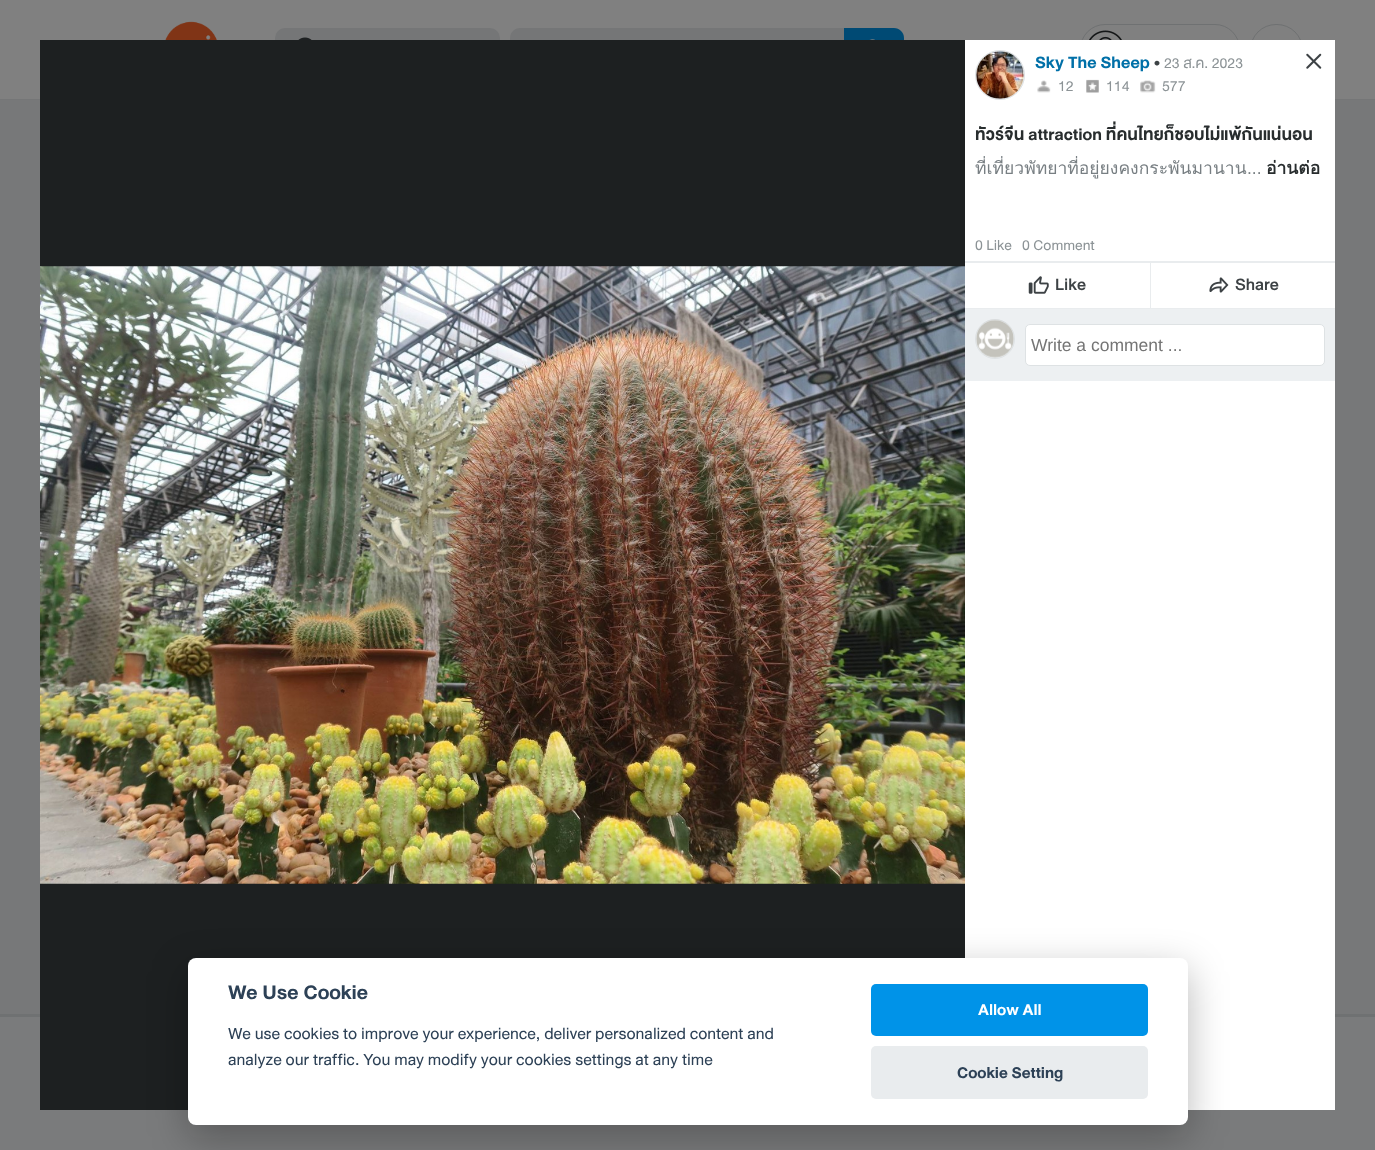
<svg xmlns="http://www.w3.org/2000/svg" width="1375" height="1150">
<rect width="100%" height="100%" fill="#808080"/>
<rect y="99" width="1375" height="1" fill="#757677"/>
<image x="165" y="21" width="52" height="19" href="media/1.png"/>
<rect x="275" y="28" width="225" height="45" rx="10" fill="#757677"/>
<image x="298" y="37" width="14" height="3" href="media/2.png"/>
<path d="M520 28h324v45h-324c-5.5 0-10-4.5-10-10v-25c0-5.5 4.5-10 10-10z" fill="#757677"/>
<path d="M844 28h50c5.5 0 10 4.5 10 10v25c0 5.5-4.5 10-10 10h-50z" fill="#004a74"/>
<image x="869" y="39" width="6" height="1" href="media/3.png"/>
<rect x="1080.5" y="24.5" width="159" height="51" rx="24.5" fill="none" stroke="#6f7172"/>
<image x="1089" y="30" width="33" height="10" href="media/4.png"/>
<rect x="1250.5" y="24.5" width="52" height="51" rx="25.5" fill="none" stroke="#6f7172"/>
<rect y="100" width="1375" height="914" fill="#777879"/>
<rect y="1017" width="1375" height="133" fill="#7a7b7c"/>
<rect y="1014" width="1375" height="3" fill="#6f7172"/>
<rect x="965" y="40" width="370" height="1070" fill="#fff"/>
<rect x="40" y="40" width="925" height="1070" fill="#1d2021"/>
<image x="40" y="266" width="925" height="618" href="media/5.png"/>
<image x="1306" y="53" width="16" height="16" href="media/6.png"/>
<circle cx="1000" cy="75" r="24.5" fill="#edf0f2" stroke="#dee2e4"/>
<image x="976" y="51" width="48" height="48" href="media/7.png"/>
<text x="1035" y="68" style="font-family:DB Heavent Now;font-size:17.5px;font-weight:bold;fill:#0070a8">Sky The Sheep</text>
<text x="1154" y="68" style="font-family:DB Heavent Now;font-size:17.5px;fill:#3d4245">•</text>
<text x="1164" y="68" style="font-family:DB Heavent Now;font-size:15px;fill:#8c9396">23 ส.ค. 2023</text>
<image x="1037" y="80" width="14" height="13" href="media/8.png"/>
<text x="1058" y="91" style="font-family:DB Heavent Now;font-size:15px;fill:#8c9396">12</text>
<image x="1086" y="79" width="13" height="14" href="media/9.png"/>
<text x="1106" y="91" style="font-family:DB Heavent Now;font-size:15px;fill:#8c9396">114</text>
<image x="1140" y="80" width="16" height="13" href="media/10.png"/>
<text x="1162" y="91" style="font-family:DB Heavent Now;font-size:15px;fill:#8c9396">577</text>
<text x="975" y="140" style="font-family:DB Heavent Now;font-size:17.5px;font-weight:bold;fill:#282d2e">ทัวร์จีน attraction ที่คนไทยก็ชอบไม่แพ้กันแน่นอน</text>
<text x="975" y="174" style="font-family:Loma;font-size:17.5px;fill:#787f83">ที่เที่ยวพัทยาที่อยู่ยงคงกระพันมานาน</text>
<text x="1247" y="174" style="font-family:Liberation Sans;font-size:17.5px;fill:#787f83">...</text>
<text x="1266" y="174" style="font-family:Loma;font-size:17.5px;font-weight:bold;fill:#282d2e">อ่านต่อ</text>
<text x="975" y="250" style="font-family:DB Heavent Now;font-size:15px;fill:#8c9396">0 Like</text>
<text x="1022" y="250" style="font-family:DB Heavent Now;font-size:15px;fill:#8c9396">0 Comment</text>
<rect x="965" y="261" width="370" height="48" fill="#e9ecee"/>
<rect x="965" y="263" width="185" height="45" fill="#fff"/>
<image x="1028" y="276" width="21" height="18" href="media/11.png"/>
<text x="1055" y="290" style="font-family:DB Heavent Now;font-size:17.5px;font-weight:500;fill:#3d4245">Like</text>
<rect x="1151" y="263" width="184" height="45" fill="#fff"/>
<image x="1209" y="277" width="20" height="16" href="media/12.png"/>
<text x="1235" y="290" style="font-family:DB Heavent Now;font-size:17.5px;font-weight:500;fill:#3d4245">Share</text>
<rect x="965" y="309" width="370" height="72" fill="#edf0f2"/>
<circle cx="995" cy="339" r="19.5" fill="none" stroke="#dee2e4"/>
<image x="976" y="319" width="38" height="39" href="media/13.png"/>
<rect x="1025.5" y="324.5" width="299" height="41" rx="4.5" fill="#fff" stroke="#dee2e4"/>
<text x="1031" y="351" style="font-family:Liberation Sans;font-size:17.5px;fill:#757575">Write a comment ...</text>
<rect x="188" y="970" width="1000" height="168" rx="8" fill="#02020347" filter="blur(19px)"/>
<rect x="188" y="958" width="1000" height="167" rx="8" fill="#fff"/>
<text x="228" y="999" style="font-family:DB Heavent Now;font-size:21px;font-weight:bold;fill:#2d4156">We Use Cookie</text>
<text x="228" y="1039" style="font-family:DB Heavent Now;font-size:17px;fill:#2d4156">We use cookies to improve your experience, deliver personalized content and</text>
<text x="228" y="1065" style="font-family:DB Heavent Now;font-size:17px;fill:#2d4156">analyze our traffic. You may modify your cookies settings at any time</text>
<rect x="871" y="984" width="277" height="52" rx="5" fill="#0093e8"/>
<text x="978" y="1015" style="font-family:DB Heavent Now;font-size:16.5px;font-weight:bold;fill:#fff">Allow All</text>
<rect x="871" y="1046" width="277" height="53" rx="5" fill="#e9ecee"/>
<text x="957" y="1078" style="font-family:DB Heavent Now;font-size:16.5px;font-weight:bold;fill:#2d4156">Cookie Setting</text>
</svg>
